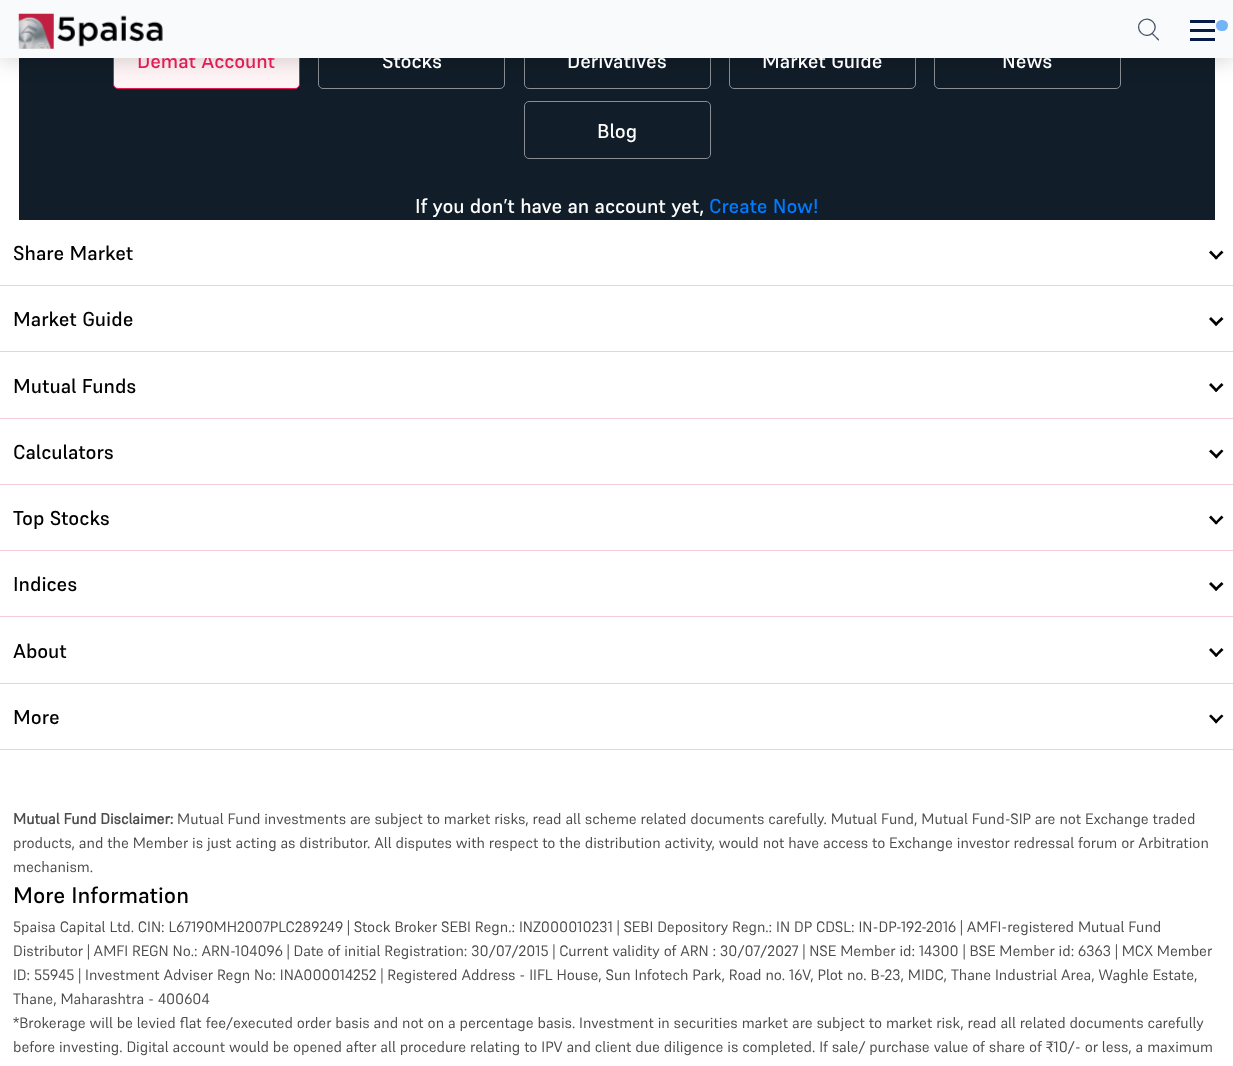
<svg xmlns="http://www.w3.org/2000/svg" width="1233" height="1066">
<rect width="100%" height="100%" fill="#fff"/>
<rect x="19" y="58" width="1196" height="162" fill="#111d28"/>
<rect x="113.5" y="31.5" width="186" height="57" rx="4.5" fill="#fff5f6" stroke="#e31b54"/>
<rect x="318.5" y="31.5" width="186" height="57" rx="4.5" fill="none" stroke="#888e94"/>
<rect x="524.5" y="31.5" width="186" height="57" rx="4.5" fill="none" stroke="#888e94"/>
<rect x="729.5" y="31.5" width="186" height="57" rx="4.5" fill="none" stroke="#888e94"/>
<rect x="934.5" y="31.5" width="186" height="57" rx="4.5" fill="none" stroke="#888e94"/>
<rect width="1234" height="58" fill="#00000033" filter="blur(12.5px)"/>
<text x="137" y="68" style="font-family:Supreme;font-size:20px;font-weight:500;fill:#e31b54">Demat Account</text>
<text x="382" y="68" style="font-family:Supreme;font-size:20px;font-weight:500;fill:#fff">Stocks</text>
<text x="567" y="68" style="font-family:Supreme;font-size:20px;font-weight:500;fill:#fff">Derivatives</text>
<text x="762" y="68" style="font-family:Supreme;font-size:20px;font-weight:500;fill:#fff">Market Guide</text>
<text x="1002" y="68" style="font-family:Supreme;font-size:20px;font-weight:500;fill:#fff">News</text>
<rect width="1233" height="58" fill="#f9fafb"/>
<image x="18" y="13" width="145" height="36" href="media/1.png"/>
<path d="M1152 33c.5-.5 3.5 3 4 3.5c.5 .5 4 3 3 4c-1 .5-3.5-3-4-3.5c-.5-.5-4-3-3-4z" fill="#475467"/>
<path d="M1141 21.5c8-7.5 19.5 4 11.5 11.5c-7.5 7.5-19-4-11.5-11.5z" fill="none" stroke="#475467" stroke-width="1.3"/>
<rect x="1190" y="20" width="25" height="3" fill="#071a46"/>
<rect x="1216" y="20" width="12" height="11" rx="5.5" fill="#73b3f7"/>
<rect x="1190" y="29" width="25" height="3" fill="#071a46"/>
<rect x="1190" y="38" width="25" height="3" fill="#071a46"/>
<rect x="524.5" y="101.5" width="186" height="57" rx="4.5" fill="none" stroke="#888e94"/>
<text x="597" y="138" style="font-family:Supreme;font-size:20px;font-weight:500;fill:#fff">Blog</text>
<text x="415" y="213" style="font-family:Supreme;font-size:20px;font-weight:500;fill:#fff">If you don’t have an account yet,</text>
<text x="709" y="213" style="font-family:Supreme;font-size:20px;font-weight:500;fill:#007bff">Create Now!</text>
<rect y="285" width="1233" height="1" fill="#f2cdd9"/>
<text x="13" y="260" style="font-family:Supreme;font-size:20px;font-weight:500;fill:#000">Share Market</text>
<path d="M1223.5 252.5l-7.5 7l-1.5-1.5l7-7.5z" fill="#000"/>
<path d="M1218 258l-2 1.5l-7-7l2-2z" fill="#000"/>
<rect y="351" width="1233" height="1" fill="#f2cdd9"/>
<text x="13" y="326" style="font-family:Supreme;font-size:20px;font-weight:500;fill:#000">Market Guide</text>
<path d="M1223.5 319l-7.5 7l-1.5-2l7-7z" fill="#000"/>
<path d="M1218 324l-2 2l-7-7l2-2z" fill="#000"/>
<rect y="418" width="1233" height="1" fill="#f2cdd9"/>
<text x="13" y="393" style="font-family:Supreme;font-size:20px;font-weight:500;fill:#000">Mutual Funds</text>
<path d="M1223.5 385l-7.5 7l-1.5-1.5l7-7.5z" fill="#000"/>
<path d="M1218 390.5l-2 1.5l-7-7l2-2z" fill="#000"/>
<rect y="484" width="1233" height="1" fill="#f2cdd9"/>
<text x="13" y="459" style="font-family:Supreme;font-size:20px;font-weight:500;fill:#000">Calculators</text>
<path d="M1223.5 451l-7 7.5l-2-2l7-7z" fill="#000"/>
<path d="M1218 456.5l-1.5 2l-7.5-7l2-2z" fill="#000"/>
<rect y="550" width="1233" height="1" fill="#f2cdd9"/>
<text x="13" y="525" style="font-family:Supreme;font-size:20px;font-weight:500;fill:#000">Top Stocks</text>
<path d="M1223.5 517.5l-7.5 7l-1.5-1.5l7-7.5z" fill="#000"/>
<path d="M1218 523l-2 1.5l-7-7l2-2z" fill="#000"/>
<rect y="616" width="1233" height="1" fill="#f2cdd9"/>
<text x="13" y="591" style="font-family:Supreme;font-size:20px;font-weight:500;fill:#000">Indices</text>
<path d="M1223.5 584l-7.5 7l-1.5-2l7-7z" fill="#000"/>
<path d="M1218 589l-2 2l-7-7l2-2z" fill="#000"/>
<rect y="683" width="1233" height="1" fill="#f2cdd9"/>
<text x="13" y="658" style="font-family:Supreme;font-size:20px;font-weight:500;fill:#000">About</text>
<path d="M1223.5 650l-7.5 7l-1.5-1.5l7-7.5z" fill="#000"/>
<path d="M1218 655.5l-2 1.5l-7-7l2-2z" fill="#000"/>
<rect y="749" width="1233" height="1" fill="#f2cdd9"/>
<text x="13" y="724" style="font-family:Supreme;font-size:20px;font-weight:500;fill:#000">More</text>
<path d="M1223.5 716l-7.5 7.5l-1.5-2l7-7z" fill="#000"/>
<path d="M1218 721.5l-2 2l-7-7.5l2-1.5z" fill="#000"/>
<text x="13" y="824" style="font-family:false;font-size:15px;font-weight:bold;fill:#4d4c4c">Mutual Fund Disclaimer:</text>
<text x="177" y="824" style="font-family:false;font-size:15px;fill:#4d4c4c">Mutual Fund investments are subject to market risks, read all scheme related documents carefully. Mutual Fund, Mutual Fund-SIP are not Exchange traded</text>
<text x="13" y="848" style="font-family:false;font-size:15px;fill:#4d4c4c">products, and the Member is just acting as distributor. All disputes with respect to the distribution activity, would not have access to Exchange investor redressal forum or Arbitration</text>
<text x="13" y="872" style="font-family:false;font-size:15px;fill:#4d4c4c">mechanism.</text>
<text x="13" y="903" style="font-family:Supreme;font-size:22.5px;font-weight:500;fill:#000">More Information</text>
<text x="13" y="932" style="font-family:false;font-size:15px;fill:#4d4c4c">5paisa Capital Ltd. CIN: L67190MH2007PLC289249 | Stock Broker SEBI Regn.: INZ000010231 | SEBI Depository Regn.: IN DP CDSL: IN-DP-192-2016 | AMFI-registered Mutual Fund</text>
<text x="13" y="956" style="font-family:false;font-size:15px;fill:#4d4c4c">Distributor | AMFI REGN No.: ARN-104096 | Date of initial Registration: 30/07/2015 | Current validity of ARN : 30/07/2027 | NSE Member id: 14300 | BSE Member id: 6363 | MCX Member</text>
<text x="13" y="980" style="font-family:false;font-size:15px;fill:#4d4c4c">ID: 55945 | Investment Adviser Regn No: INA000014252 | Registered Address - IIFL House, Sun Infotech Park, Road no. 16V, Plot no. B-23, MIDC, Thane Industrial Area, Waghle Estate,</text>
<text x="13" y="1004" style="font-family:false;font-size:15px;fill:#4d4c4c">Thane, Maharashtra - 400604</text>
<text x="13" y="1028" style="font-family:false;font-size:15px;fill:#4d4c4c">*Brokerage will be levied flat fee/executed order basis and not on a percentage basis. Investment in securities market are subject to market risk, read all related documents carefully</text>
<text x="13" y="1052" style="font-family:false;font-size:15px;fill:#4d4c4c">before investing. Digital account would be opened after all procedure relating to IPV and client due diligence is completed. If sale/ purchase value of share of ₹10/- or less, a maximum</text>
</svg>
